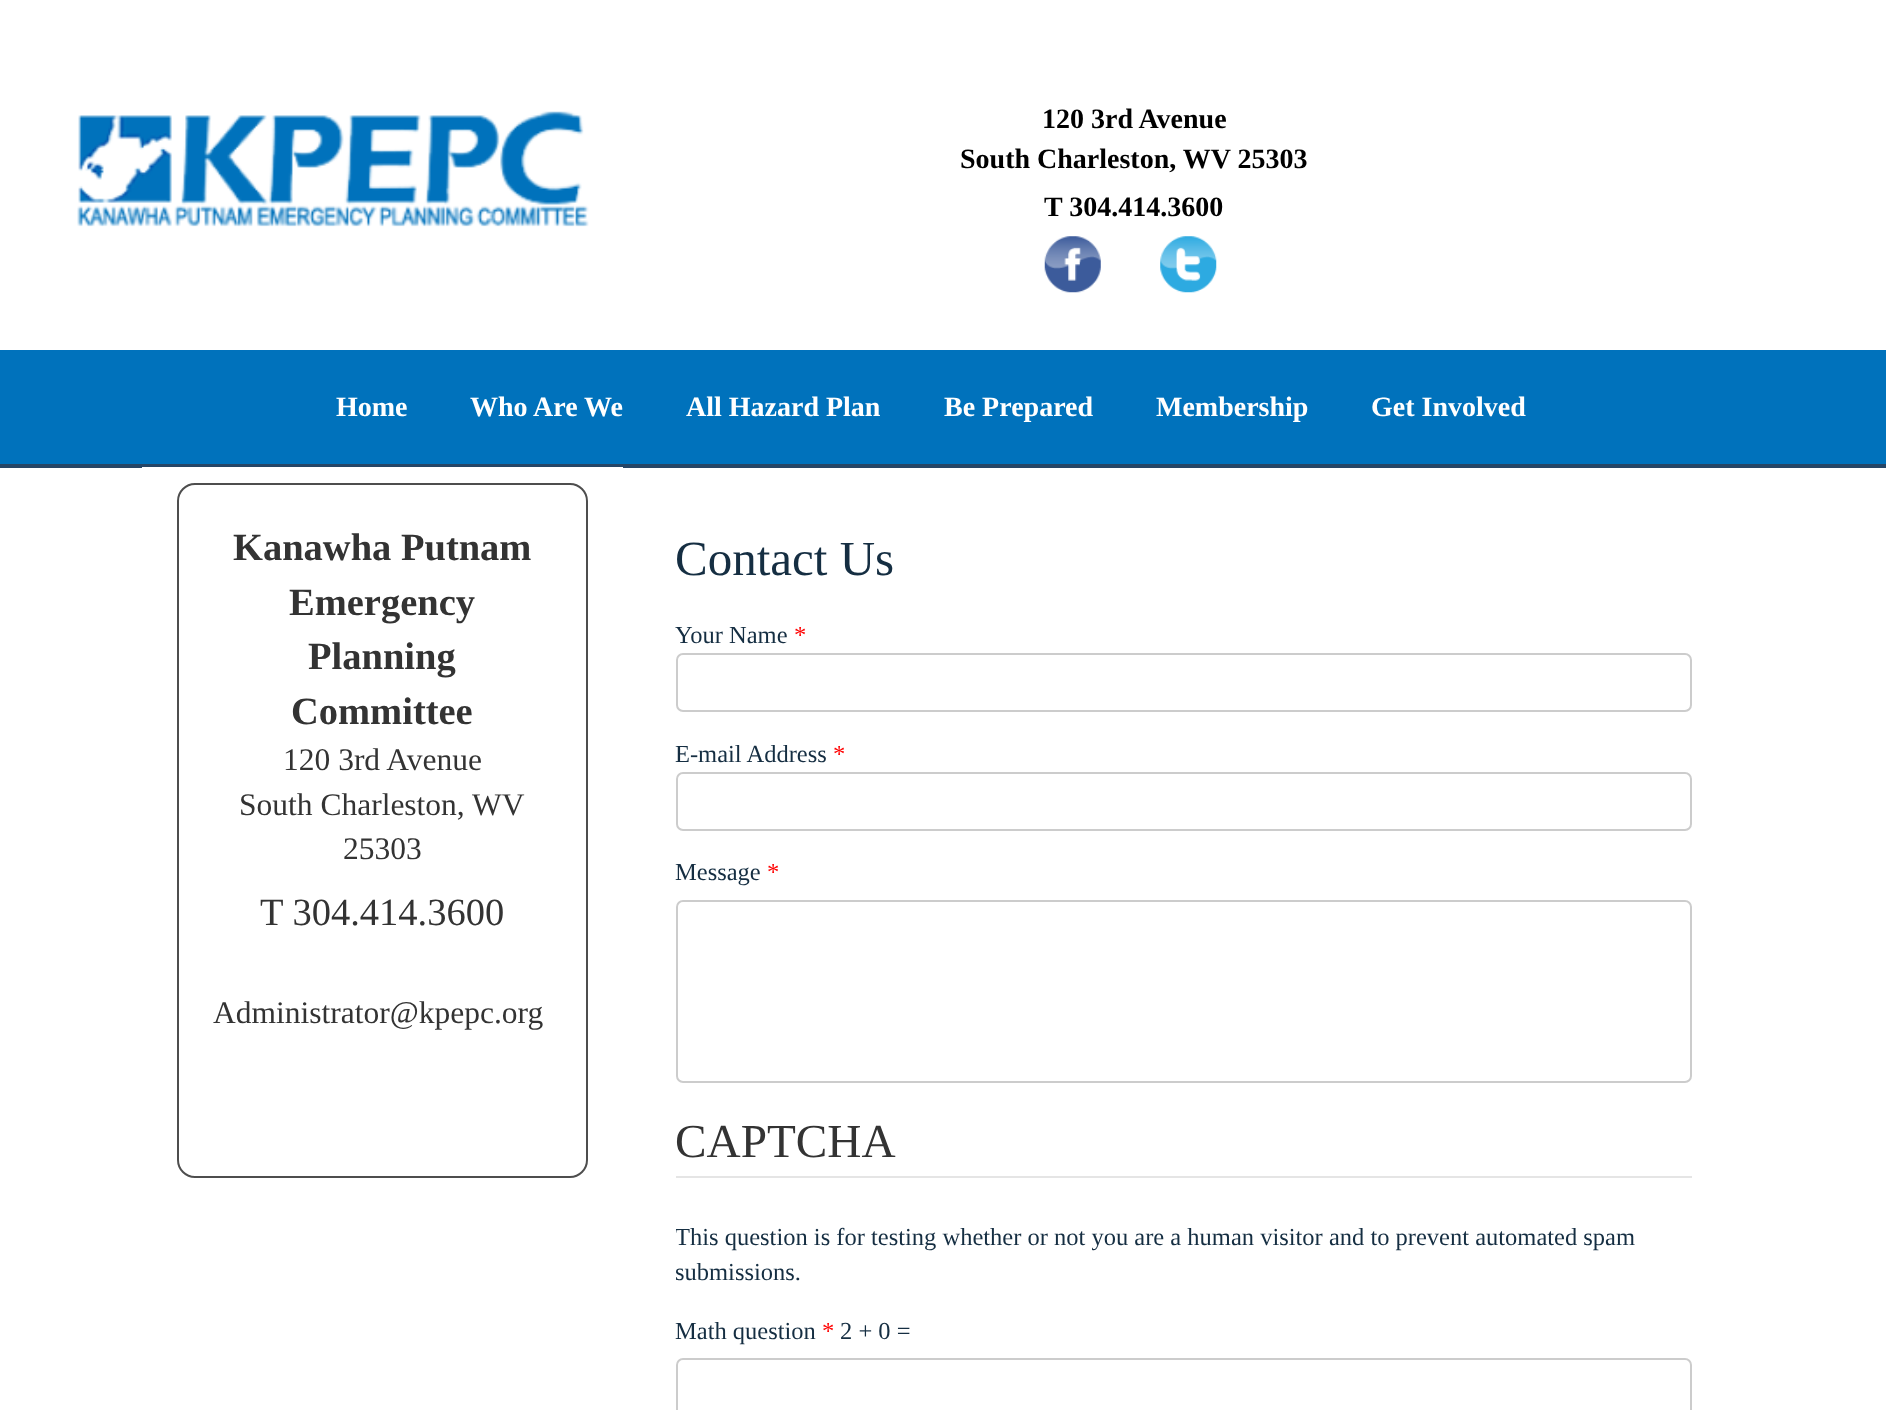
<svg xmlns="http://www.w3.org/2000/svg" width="1886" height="1410">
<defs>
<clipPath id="clip1"><rect x="676" y="520" width="1016" height="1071"/></clipPath>
</defs>
<rect width="100%" height="100%" fill="#fff"/>
<image x="77" y="111" width="512" height="116" href="media/1.png"/>
<text x="1042" y="128" style="font-family:Liberation Serif;font-size:28px;font-weight:bold;fill:#000">120 3rd Avenue</text>
<text x="960" y="168" style="font-family:Liberation Serif;font-size:28px;font-weight:bold;fill:#000">South Charleston, WV 25303</text>
<text x="1044" y="216" style="font-family:Liberation Serif;font-size:28px;font-weight:bold;fill:#000">T 304.414.3600</text>
<image x="1044" y="236" width="57" height="57" href="media/2.png"/>
<image x="1160" y="236" width="57" height="57" href="media/3.png"/>
<rect y="350" width="1886" height="114" fill="#0072bc"/>
<rect y="464" width="1886" height="4" fill="#264666"/>
<text x="336" y="416" style="font-family:Liberation Serif;font-size:28px;font-weight:bold;fill:#fff">Home</text>
<text x="470" y="416" style="font-family:Liberation Serif;font-size:28px;font-weight:bold;fill:#fff">Who Are We</text>
<text x="686" y="416" style="font-family:Liberation Serif;font-size:28px;font-weight:bold;fill:#fff">All Hazard Plan</text>
<text x="944" y="416" style="font-family:Liberation Serif;font-size:28px;font-weight:bold;fill:#fff">Be Prepared</text>
<text x="1156" y="416" style="font-family:Liberation Serif;font-size:28px;font-weight:bold;fill:#fff">Membership</text>
<text x="1371" y="416" style="font-family:Liberation Serif;font-size:28px;font-weight:bold;fill:#fff">Get Involved</text>
<rect x="142" y="467" width="481" height="1" fill="#fff"/>
<rect x="178" y="484" width="409" height="693" rx="17" fill="none" stroke="#4e4e4e" stroke-width="2"/>
<text x="233" y="560" style="font-family:Liberation Serif;font-size:38.5px;font-weight:bold;fill:#333">Kanawha Putnam</text>
<text x="289" y="615" style="font-family:Liberation Serif;font-size:38.5px;font-weight:bold;fill:#333">Emergency</text>
<text x="308" y="669" style="font-family:Liberation Serif;font-size:38.5px;font-weight:bold;fill:#333">Planning</text>
<text x="291" y="724" style="font-family:Liberation Serif;font-size:38.5px;font-weight:bold;fill:#333">Committee</text>
<text x="283" y="770" style="font-family:Liberation Serif;font-size:31.5px;fill:#333">120 3rd Avenue</text>
<text x="239" y="815" style="font-family:Liberation Serif;font-size:31.5px;fill:#333">South Charleston, WV</text>
<text x="343" y="859" style="font-family:Liberation Serif;font-size:31.5px;fill:#333">25303</text>
<text x="260" y="925" style="font-family:Liberation Serif;font-size:38.5px;fill:#333">T 304.414.3600</text>
<text x="213" y="1023" style="font-family:Liberation Serif;font-size:31.5px;fill:#333">Administrator@kpepc.org</text>
<text x="675" y="575" style="font-family:Liberation Serif;font-size:49px;fill:#152e42">Contact Us</text>
<text x="675" y="643" style="font-family:Liberation Serif;font-size:24.5px;fill:#152e42">Your Name</text>
<text x="794" y="643" style="font-family:Liberation Serif;font-size:24.5px;fill:#f00">*</text>
<rect x="677" y="654" width="1014" height="57" rx="6" fill="none" stroke="#ccc" stroke-width="2"/>
<text x="675" y="762" style="font-family:Liberation Serif;font-size:24.5px;fill:#152e42">E-mail Address</text>
<text x="833" y="762" style="font-family:Liberation Serif;font-size:24.5px;fill:#f00">*</text>
<rect x="677" y="773" width="1014" height="57" rx="6" fill="none" stroke="#ccc" stroke-width="2"/>
<text x="675" y="880" style="font-family:Liberation Serif;font-size:24.5px;fill:#152e42">Message</text>
<text x="767" y="880" style="font-family:Liberation Serif;font-size:24.5px;fill:#f00">*</text>
<rect x="677" y="901" width="1014" height="181" rx="6" fill="none" stroke="#ccc" stroke-width="2"/>
<rect x="676" y="1176" width="1016" height="2" fill="#e5e5e5"/>
<text x="675" y="1157" style="font-family:Liberation Serif;font-size:47.25px;fill:#333">CAPTCHA</text>
<g clip-path="url(#clip1)">
<text x="675" y="1245" style="font-family:Liberation Serif;font-size:24.5px;fill:#152e42">This question is for testing whether or not you are a human visitor and to prevent automated spam</text>
</g>
<text x="675" y="1280" style="font-family:Liberation Serif;font-size:24.5px;fill:#152e42">submissions.</text>
<text x="675" y="1339" style="font-family:Liberation Serif;font-size:24.5px;fill:#152e42">Math question</text>
<text x="822" y="1339" style="font-family:Liberation Serif;font-size:24.5px;fill:#f00">*</text>
<text x="840" y="1339" style="font-family:Liberation Serif;font-size:24.5px;fill:#152e42">2 + 0 =</text>
<rect x="677" y="1359" width="1014" height="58" rx="6" fill="none" stroke="#ccc" stroke-width="2"/>
</svg>
